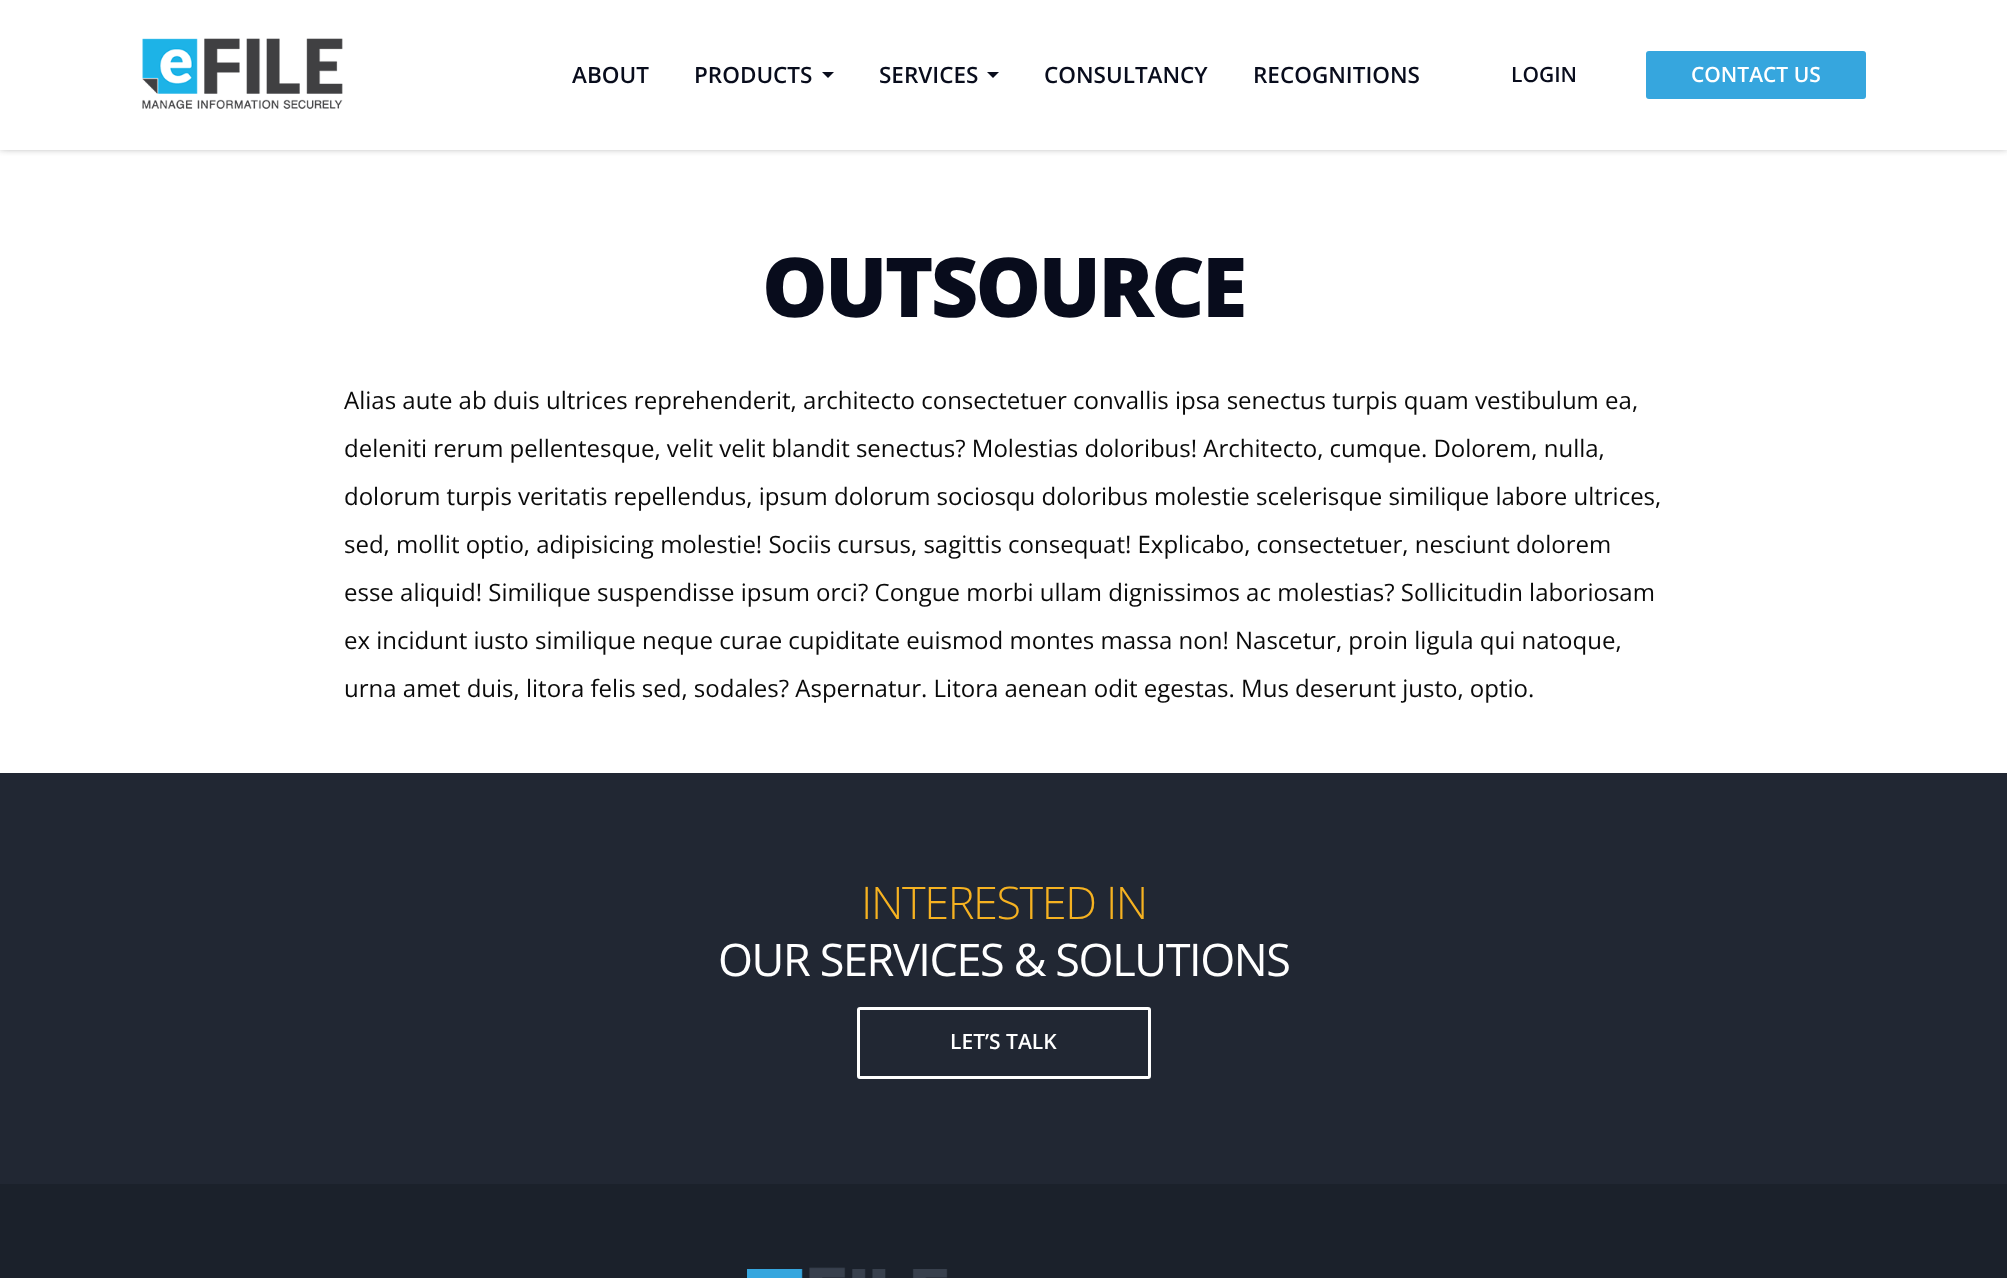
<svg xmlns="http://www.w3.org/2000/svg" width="2007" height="1278">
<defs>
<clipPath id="clip1"><rect x="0" y="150" width="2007" height="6"/></clipPath>
</defs>
<rect width="100%" height="100%" fill="#fff"/>
<g clip-path="url(#clip1)">
<rect y="-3" width="2007" height="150" fill="#797979" filter="blur(4.5px)"/>
</g>
<image x="142" y="38" width="201" height="71" href="media/1.png"/>
<text x="572" y="83" style="font-family:Open Sans;font-size:22.5px;font-weight:600;fill:#080c1c">ABOUT</text>
<text x="694" y="83" style="font-family:Open Sans;font-size:22.5px;font-weight:600;fill:#080c1c">PRODUCTS</text>
<path d="M822 72h12l-6 6z" fill="#080c1c"/>
<text x="879" y="83" style="font-family:Open Sans;font-size:22.5px;font-weight:600;fill:#080c1c">SERVICES</text>
<path d="M987 72h12l-6 6z" fill="#080c1c"/>
<text x="1044" y="83" style="font-family:Open Sans;font-size:22.5px;font-weight:600;fill:#080c1c">CONSULTANCY</text>
<text x="1253" y="83" style="font-family:Open Sans;font-size:22.5px;font-weight:600;fill:#080c1c">RECOGNITIONS</text>
<text x="1511" y="82" style="font-family:Open Sans;font-size:21px;font-weight:600;fill:#080c1c">LOGIN</text>
<rect x="1646" y="51" width="220" height="48" rx="3" fill="#36a6de"/>
<text x="1691" y="82" style="font-family:Open Sans;font-size:21px;font-weight:600;fill:#fff">CONTACT US</text>
<text x="762" y="317" style="font-family:Open Sans;font-size:82.5px;font-weight:800;letter-spacing:-2.75px;fill:#080c1c">OUTSOURCE</text>
<text x="344" y="409" style="font-family:Open Sans;font-size:24px;fill:#0a0a0a">Alias aute ab duis ultrices reprehenderit, architecto consectetuer convallis ipsa senectus turpis quam vestibulum ea,</text>
<text x="344" y="457" style="font-family:Open Sans;font-size:24px;fill:#0a0a0a">deleniti rerum pellentesque, velit velit blandit senectus? Molestias doloribus! Architecto, cumque. Dolorem, nulla,</text>
<text x="344" y="505" style="font-family:Open Sans;font-size:24px;fill:#0a0a0a">dolorum turpis veritatis repellendus, ipsum dolorum sociosqu doloribus molestie scelerisque similique labore ultrices,</text>
<text x="344" y="553" style="font-family:Open Sans;font-size:24px;fill:#0a0a0a">sed, mollit optio, adipisicing molestie! Sociis cursus, sagittis consequat! Explicabo, consectetuer, nesciunt dolorem</text>
<text x="344" y="601" style="font-family:Open Sans;font-size:24px;fill:#0a0a0a">esse aliquid! Similique suspendisse ipsum orci? Congue morbi ullam dignissimos ac molestias? Sollicitudin laboriosam</text>
<text x="344" y="649" style="font-family:Open Sans;font-size:24px;fill:#0a0a0a">ex incidunt iusto similique neque curae cupiditate euismod montes massa non! Nascetur, proin ligula qui natoque,</text>
<text x="344" y="697" style="font-family:Open Sans;font-size:24px;fill:#0a0a0a">urna amet duis, litora felis sed, sodales? Aspernatur. Litora aenean odit egestas. Mus deserunt justo, optio.</text>
<rect y="773" width="2007" height="411" fill="#212733"/>
<text x="861" y="919" style="font-family:Open Sans;font-size:45px;font-weight:300;letter-spacing:-1.4px;fill:#f6b221">INTERESTED IN</text>
<text x="718" y="976" style="font-family:Open Sans;font-size:45px;letter-spacing:-1.4px;fill:#fff">OUR SERVICES &amp; SOLUTIONS</text>
<rect x="858.5" y="1008.5" width="291" height="69" rx="1.5" fill="none" stroke="#fff" stroke-width="3"/>
<text x="950" y="1049" style="font-family:Open Sans;font-size:21px;font-weight:600;fill:#fff">LET’S TALK</text>
<rect y="1184" width="2007" height="94" fill="#1b212b"/>
<image x="747" y="1267" width="201" height="11" href="media/2.png"/>
</svg>
